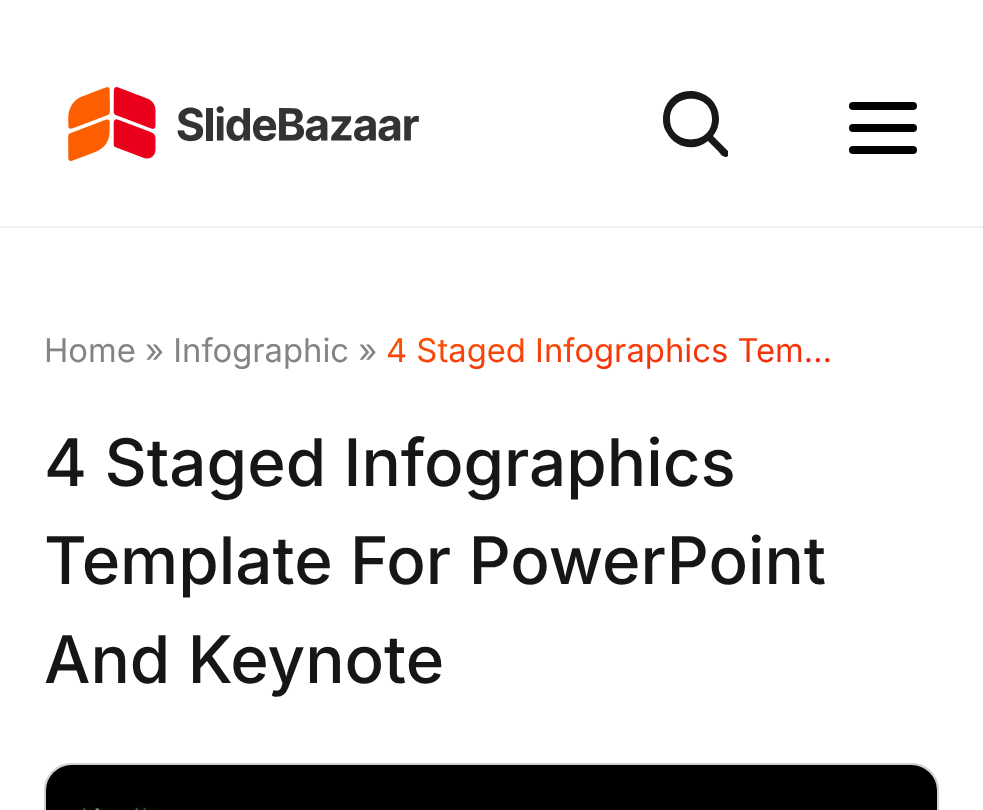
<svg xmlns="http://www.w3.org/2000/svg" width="983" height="810">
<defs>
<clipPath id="clip1"><rect x="663" y="91" width="65" height="66"/></clipPath>
<linearGradient id="g1" gradientUnits="userSpaceOnUse" x1="848" y1="289" x2="858" y2="410"><stop offset="0" stop-color="#fd5f00"/><stop offset="1" stop-color="#ea001b"/></linearGradient>
</defs>
<rect width="100%" height="100%" fill="#fff"/>
<rect y="226" width="983" height="2" fill="#f2f2f2"/>
<image x="68" y="87" width="351" height="74" href="media/1.png"/>
<g clip-path="url(#clip1)">
<path d="M728 151l-15-15c4-5 6-11 6-17c0-30-42-39-54-11c-3 8-3 18 2 25c8 15 28 19 41 8l10 10c2 2 4 6 8 6c2 0 5-4 2-6zm-58-32c0-27 43-27 42 1c-1 26-42 26-42-1z" fill="#181818"/>
</g>
<rect x="849" y="124" width="68" height="8" rx="4" fill="#000"/>
<rect x="849" y="102" width="68" height="8" rx="4" fill="#000"/>
<rect x="849" y="146" width="68" height="8" rx="4" fill="#000"/>
<text x="44" y="362" style="font-family:Inter;font-size:32.75px;fill:#848484">Home » Infographic »</text>
<text x="386" y="362" style="font-family:Inter;font-size:32.75px;fill:url(#g1)">4 Staged Infographics Tem…</text>
<text x="44" y="486" style="font-family:Inter;font-size:65.5px;font-weight:500;fill:#161616">4 Staged Infographics</text>
<text x="44" y="584" style="font-family:Inter;font-size:65.5px;font-weight:500;fill:#161616">Template For PowerPoint</text>
<text x="44" y="683" style="font-family:Inter;font-size:65.5px;font-weight:500;fill:#161616">And Keynote</text>
<rect x="45" y="764" width="893" height="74" rx="26" fill="none" stroke="#d0d0d0" stroke-width="2"/>
<image x="46" y="765" width="891" height="45" href="media/2.png"/>
</svg>
